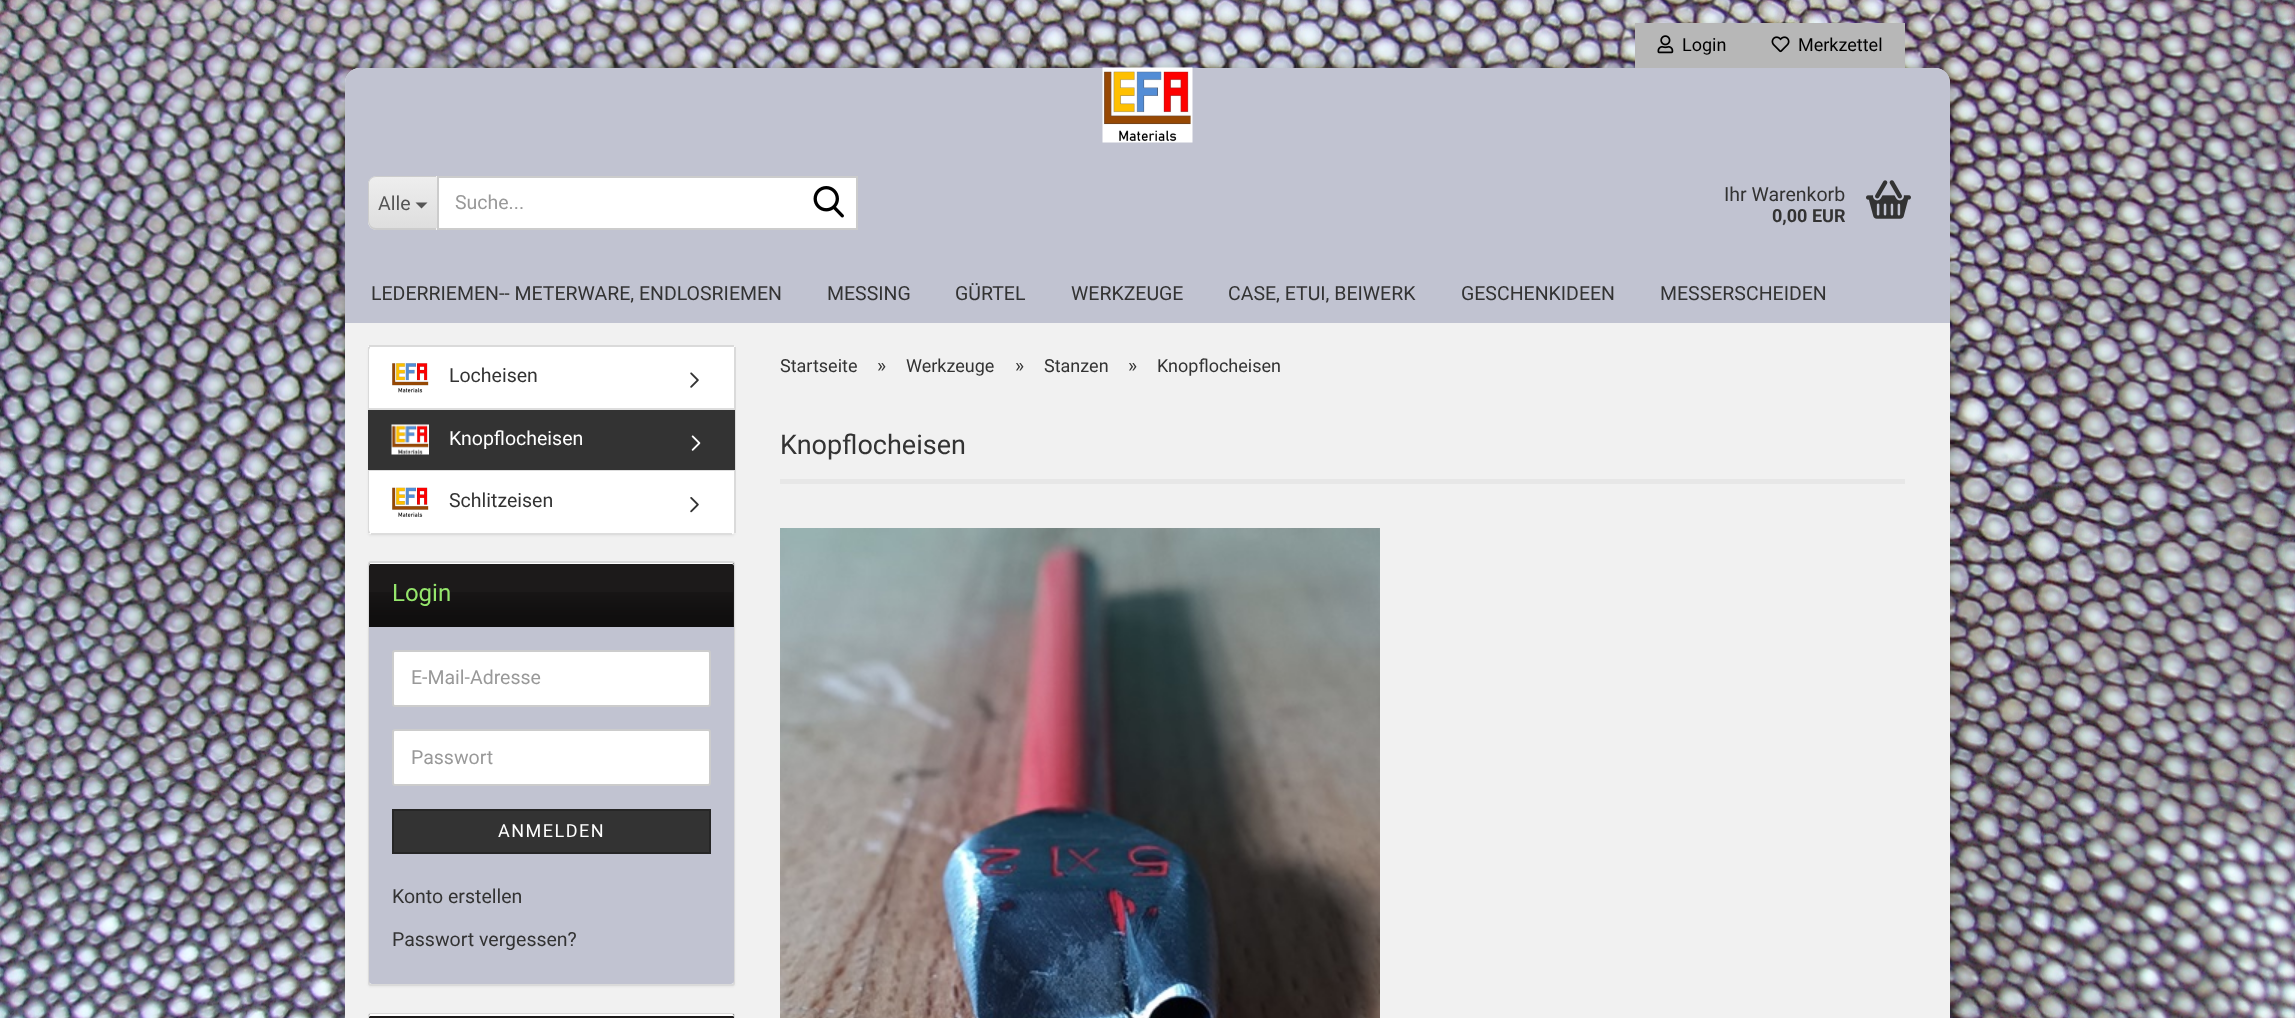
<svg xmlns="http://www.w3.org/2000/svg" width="2295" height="1018">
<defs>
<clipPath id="clip1"><path d="M377 176h60v54h-60c-5 0-9-4-9-9v-36c0-5 4-9 9-9z"/></clipPath>
<linearGradient id="g1" gradientUnits="userSpaceOnUse" x1="403" y1="177" x2="403" y2="228"><stop offset="0" stop-color="#eee"/><stop offset="1" stop-color="#dedede"/></linearGradient>
</defs>
<rect width="100%" height="100%" fill="#fff"/>
<image x="0" y="0" width="2295" height="1018" href="media/1.png"/>
<rect x="345" y="68" width="1605" height="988" rx="15" fill="#0000004d" filter="blur(7.5px)"/>
<rect x="345" y="68" width="1605" height="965" rx="15" fill="#f1f1f1"/>
<path d="M360 68h1575c8.5 0 15 6.5 15 15v237c0 1.5-1.5 3-3 3h-1599c-1.5 0-3-1.5-3-3v-237c0-8.5 6.5-15 15-15z" fill="#c1c3d1"/>
<rect x="1635" y="23" width="270" height="45" fill="#b7b7b7"/>
<image x="1657" y="35" width="17" height="19" href="media/2.png"/>
<text x="1682" y="51" style="font-family:Roboto;font-size:18px;fill:#000">Login</text>
<image x="1771" y="36" width="19" height="17" href="media/3.png"/>
<text x="1798" y="51" style="font-family:Roboto;font-size:18px;fill:#000">Merkzettel</text>
<image x="1102" y="67" width="91" height="76" href="media/4.png"/>
<path d="M377 176h60v54h-60c-5 0-9-4-9-9v-36c0-5 4-9 9-9z" fill="#f3f3f3"/>
<g clip-path="url(#clip1)">
<rect x="368" y="177" width="69" height="51" fill="url(#g1)"/>
</g>
<path d="M376 176h60v54h-60c-4 0-8-5-8-10v-36c0-4 4-8 8-8zm0 1h60v51h-60c-4 0-7-3-7-8v-36c0-4 3-7 7-7z" fill="#ccc" fill-rule="evenodd"/>
<text x="378" y="210" style="font-family:Roboto;font-size:19.5px;fill:#555">Alle</text>
<path d="M415.5 202.5h12l-6 6z" fill="#555"/>
<rect x="438" y="177" width="419" height="52" fill="#fff" stroke="#ccc" stroke-width="2"/>
<text x="455" y="209" style="font-family:Roboto;font-size:19.5px;fill:#999">Suche...</text>
<image x="813" y="186" width="31" height="32" href="media/5.png"/>
<text x="1724" y="201" style="font-family:Roboto;font-size:19.5px;fill:#333">Ihr Warenkorb</text>
<text x="1772" y="222" style="font-family:Roboto;font-size:18px;font-weight:bold;fill:#333">0,00 EUR</text>
<image x="1866" y="180" width="45" height="39" href="media/6.png"/>
<rect x="345" y="320" width="1605" height="3" fill="#c1c3d1"/>
<text x="371" y="300" style="font-family:Roboto;font-size:19.5px;fill:#333">LEDERRIEMEN-- METERWARE, ENDLOSRIEMEN</text>
<text x="827" y="300" style="font-family:Roboto;font-size:19.5px;fill:#333">MESSING</text>
<text x="955" y="300" style="font-family:Roboto;font-size:19.5px;fill:#333">GÜRTEL</text>
<text x="1071" y="300" style="font-family:Roboto;font-size:19.5px;fill:#333">WERKZEUGE</text>
<text x="1228" y="300" style="font-family:Roboto;font-size:19.5px;fill:#333">CASE, ETUI, BEIWERK</text>
<text x="1461" y="300" style="font-family:Roboto;font-size:19.5px;fill:#333">GESCHENKIDEEN</text>
<text x="1660" y="300" style="font-family:Roboto;font-size:19.5px;fill:#333">MESSERSCHEIDEN</text>
<rect x="368" y="347" width="367" height="189" rx="3" fill="#0000000d" filter="blur(1px)"/>
<rect x="368" y="345" width="367" height="189" rx="3" fill="#fff"/>
<rect x="369" y="345" width="365" height="2" fill="#dadada"/>
<rect x="734" y="347" width="2" height="186" fill="#dadada"/>
<rect x="368" y="347" width="2" height="186" fill="#dadada"/>
<rect x="369" y="408" width="365" height="2" fill="#ddd"/>
<path d="M372 347h359c1.5 0 3 1.5 3 3v58h-365v-58c0-1.5 1.5-3 3-3z" fill="#fff"/>
<image x="392" y="363" width="37" height="30" href="media/7.png"/>
<text x="449" y="382" style="font-family:Roboto;font-size:19.5px;fill:#333">Locheisen</text>
<image x="690" y="372" width="9" height="16" href="media/8.png"/>
<rect x="369" y="470" width="365" height="1" fill="#ddd"/>
<rect x="368" y="410" width="367" height="60" fill="#333"/>
<image x="391" y="424" width="38" height="31" href="media/9.png"/>
<text x="449" y="445" style="font-family:Roboto;font-size:19.5px;fill:#fff">Knopflocheisen</text>
<image x="691" y="435" width="10" height="16" href="media/10.png"/>
<rect x="371" y="533" width="361" height="2" fill="#ddd"/>
<path d="M369 471h365v59c0 1.5-1.5 3-3 3h-359c-1.5 0-3-1.5-3-3z" fill="#fff"/>
<image x="392" y="487" width="37" height="30" href="media/11.png"/>
<text x="449" y="507" style="font-family:Roboto;font-size:19.5px;fill:#333">Schlitzeisen</text>
<image x="690" y="497" width="9" height="16" href="media/12.png"/>
<rect x="368" y="563" width="367" height="424" rx="3" fill="#0000000d" filter="blur(1px)"/>
<rect x="369" y="562" width="365" height="423" rx="2" fill="#fff" stroke="#dadada" stroke-width="2"/>
<path d="M370.5 563h362c1 0 1.5 .5 1.5 1.5v62.5h-365v-62.5c0-1 .5-1.5 1.5-1.5z" fill="#1c1a1a"/>
<image x="369" y="592" width="364" height="35" href="media/13.png"/>
<path d="M370 564h362c1 0 2 1 2 2c0-1 0-3-2-3h-362c-1 0-1 2-1 3z" fill="#fff"/>
<text x="392" y="601" style="font-family:Roboto;font-size:24px;fill:#95e66c">Login</text>
<path d="M369 627h365v354c0 1.5-1.5 3-3 3h-359c-1.5 0-3-1.5-3-3z" fill="#c1c3d1"/>
<rect x="393" y="651" width="317" height="55" rx="2" fill="#fff" stroke="#ccc" stroke-width="2"/>
<text x="411" y="684" style="font-family:Roboto;font-size:19.5px;fill:#999">E-Mail-Adresse</text>
<rect x="393" y="730" width="317" height="55" rx="2" fill="#fff" stroke="#ccc" stroke-width="2"/>
<text x="411" y="764" style="font-family:Roboto;font-size:19.5px;fill:#999">Passwort</text>
<rect x="393" y="810" width="317" height="43" fill="#333" stroke="#262626" stroke-width="2"/>
<text x="498" y="837" style="font-family:Roboto;font-size:18px;letter-spacing:1.5px;fill:#fff">ANMELDEN</text>
<text x="392" y="903" style="font-family:Roboto;font-size:19.5px;fill:#333">Konto erstellen</text>
<text x="392" y="946" style="font-family:Roboto;font-size:19.5px;fill:#333">Passwort vergessen?</text>
<rect x="369" y="1014" width="365" height="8" rx="2" fill="none" stroke="#dadada" stroke-width="2"/>
<path d="M370.5 1014h362c1 0 1.5 .5 1.5 1.5v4.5h-365v-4.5c0-1 .5-1.5 1.5-1.5z" fill="#1c1a1a"/>
<path d="M370 1016h362c1 0 2 0 2 1c0-1 0-3-2-3h-362c-1 0-1 2-1 3z" fill="#fff"/>
<text x="780" y="372" style="font-family:Roboto;font-size:18px;fill:#333">Startseite</text>
<text x="877" y="372" style="font-family:Roboto;font-size:19.5px;fill:#333">»</text>
<text x="906" y="372" style="font-family:Roboto;font-size:18px;fill:#333">Werkzeuge</text>
<text x="1015" y="372" style="font-family:Roboto;font-size:19.5px;fill:#333">»</text>
<text x="1044" y="372" style="font-family:Roboto;font-size:18px;fill:#333">Stanzen</text>
<text x="1128" y="372" style="font-family:Roboto;font-size:19.5px;fill:#333">»</text>
<text x="1157" y="372" style="font-family:Roboto;font-size:18px;fill:#333">Knopflocheisen</text>
<rect x="780" y="479" width="1125" height="5" fill="#e7e7e7"/>
<text x="780" y="454" style="font-family:Roboto;font-size:27px;fill:#333">Knopflocheisen</text>
<image x="780" y="528" width="600" height="490" href="media/14.png"/>
</svg>
